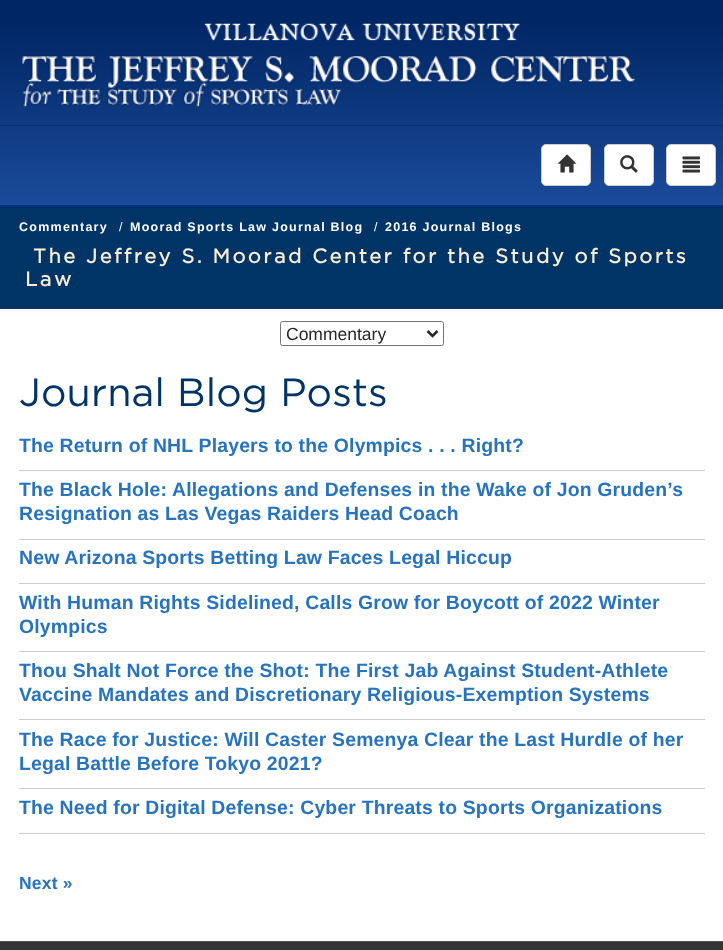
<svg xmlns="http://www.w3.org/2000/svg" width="723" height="950">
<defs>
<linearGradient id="g1" gradientUnits="userSpaceOnUse" x1="362" y1="0" x2="362" y2="206"><stop offset="0.1" stop-color="#002664"/><stop offset="1" stop-color="#1b4b9a"/></linearGradient>
<linearGradient id="g2" gradientUnits="userSpaceOnUse" x1="362" y1="206" x2="362" y2="413"><stop offset="0.1" stop-color="#002664"/><stop offset="1" stop-color="#1b4b9a"/></linearGradient>
</defs>
<rect width="100%" height="100%" fill="#fff"/>
<rect width="723" height="205" fill="url(#g1)"/>
<rect y="207" width="723" height="1" fill="url(#g2)"/>
<rect y="206" width="723" height="1" fill="#023486"/>
<image x="204" y="23" width="317" height="18" href="media/1.png"/>
<image x="21" y="55" width="615" height="52" href="media/2.png"/>
<rect y="125" width="723" height="1" fill="#04317b"/>
<rect y="205" width="723" height="1" fill="#04317b"/>
<rect x="541.5" y="144.5" width="49" height="41" rx="4.5" fill="#fff" stroke="#ccc"/>
<image x="557" y="154" width="20" height="19" href="media/3.png"/>
<rect x="604.5" y="144.5" width="49" height="41" rx="4.5" fill="#fff" stroke="#ccc"/>
<image x="620" y="155" width="18" height="18" href="media/4.png"/>
<rect x="666.5" y="144.5" width="49" height="41" rx="4.5" fill="#fff" stroke="#ccc"/>
<image x="682" y="156" width="18" height="17" href="media/5.png"/>
<rect y="208" width="723" height="101" fill="#036"/>
<text x="19" y="231" style="font-family:Liberation Sans;font-size:12.5px;font-weight:bold;letter-spacing:1.25px;fill:#fff">Commentary</text>
<text x="119" y="231" style="font-family:Liberation Sans;font-size:12.5px;letter-spacing:1.25px;fill:#fff">/</text>
<text x="130" y="231" style="font-family:Liberation Sans;font-size:12.5px;font-weight:bold;letter-spacing:1.25px;fill:#fff">Moorad Sports Law Journal Blog</text>
<text x="374" y="231" style="font-family:Liberation Sans;font-size:12.5px;letter-spacing:1.25px;fill:#fff">/</text>
<text x="385" y="231" style="font-family:Liberation Sans;font-size:12.5px;font-weight:bold;letter-spacing:1.25px;fill:#fff">2016 Journal Blogs</text>
<text x="33" y="263" style="font-family:Gotham;font-size:20px;font-weight:bold;letter-spacing:2.5px;fill:#f7eed4">The Jeffrey S. Moorad Center for the Study of Sports</text>
<text x="25" y="286" style="font-family:Gotham;font-size:20px;font-weight:bold;letter-spacing:2.5px;fill:#f7eed4">Law</text>
<rect x="280.5" y="321.5" width="163" height="24" rx="2" fill="none" stroke="#767676"/>
<path d="M427.5 331l5 5l5-5" fill="none" stroke="#272727" stroke-width="2.5"/>
<text x="286" y="340" style="font-family:Liberation Sans;font-size:17.5px;fill:#272727">Commentary</text>
<text x="19" y="406" style="font-family:Gotham;font-size:39.4px;letter-spacing:0.18px;fill:#036">Journal Blog Posts</text>
<rect x="19" y="470" width="686" height="1" fill="#ccc"/>
<text x="19" y="452" style="font-family:Liberation Sans;font-size:19.4px;font-weight:bold;letter-spacing:0.18px;fill:#2773be">The Return of NHL Players to the Olympics . . . Right?</text>
<rect x="19" y="539" width="686" height="1" fill="#ccc"/>
<text x="19" y="496" style="font-family:Liberation Sans;font-size:19.4px;font-weight:bold;letter-spacing:0.18px;fill:#2773be">The Black Hole: Allegations and Defenses in the Wake of Jon Gruden’s</text>
<text x="19" y="520" style="font-family:Liberation Sans;font-size:19.4px;font-weight:bold;letter-spacing:0.18px;fill:#2773be">Resignation as Las Vegas Raiders Head Coach</text>
<rect x="19" y="583" width="686" height="1" fill="#ccc"/>
<text x="19" y="564" style="font-family:Liberation Sans;font-size:19.4px;font-weight:bold;letter-spacing:0.18px;fill:#2773be">New Arizona Sports Betting Law Faces Legal Hiccup</text>
<rect x="19" y="651" width="686" height="1" fill="#ccc"/>
<text x="19" y="609" style="font-family:Liberation Sans;font-size:19.4px;font-weight:bold;letter-spacing:0.18px;fill:#2773be">With Human Rights Sidelined, Calls Grow for Boycott of 2022 Winter</text>
<text x="19" y="633" style="font-family:Liberation Sans;font-size:19.4px;font-weight:bold;letter-spacing:0.18px;fill:#2773be">Olympics</text>
<rect x="19" y="719" width="686" height="1" fill="#ccc"/>
<text x="19" y="677" style="font-family:Liberation Sans;font-size:19.4px;font-weight:bold;letter-spacing:0.18px;fill:#2773be">Thou Shalt Not Force the Shot: The First Jab Against Student-Athlete</text>
<text x="19" y="701" style="font-family:Liberation Sans;font-size:19.4px;font-weight:bold;letter-spacing:0.18px;fill:#2773be">Vaccine Mandates and Discretionary Religious-Exemption Systems</text>
<rect x="19" y="788" width="686" height="1" fill="#ccc"/>
<text x="19" y="746" style="font-family:Liberation Sans;font-size:19.4px;font-weight:bold;letter-spacing:0.18px;fill:#2773be">The Race for Justice: Will Caster Semenya Clear the Last Hurdle of her</text>
<text x="19" y="770" style="font-family:Liberation Sans;font-size:19.4px;font-weight:bold;letter-spacing:0.18px;fill:#2773be">Legal Battle Before Tokyo 2021?</text>
<rect x="19" y="833" width="686" height="1" fill="#ccc"/>
<text x="19" y="814" style="font-family:Liberation Sans;font-size:19.4px;font-weight:bold;letter-spacing:0.18px;fill:#2773be">The Need for Digital Defense: Cyber Threats to Sports Organizations</text>
<text x="19" y="889" style="font-family:Liberation Sans;font-size:17.5px;font-weight:bold;letter-spacing:0.18px;fill:#2773be">Next »</text>
<rect y="942" width="723" height="8" fill="#333"/>
<rect y="941" width="723" height="1" fill="#4f5050"/>
</svg>
